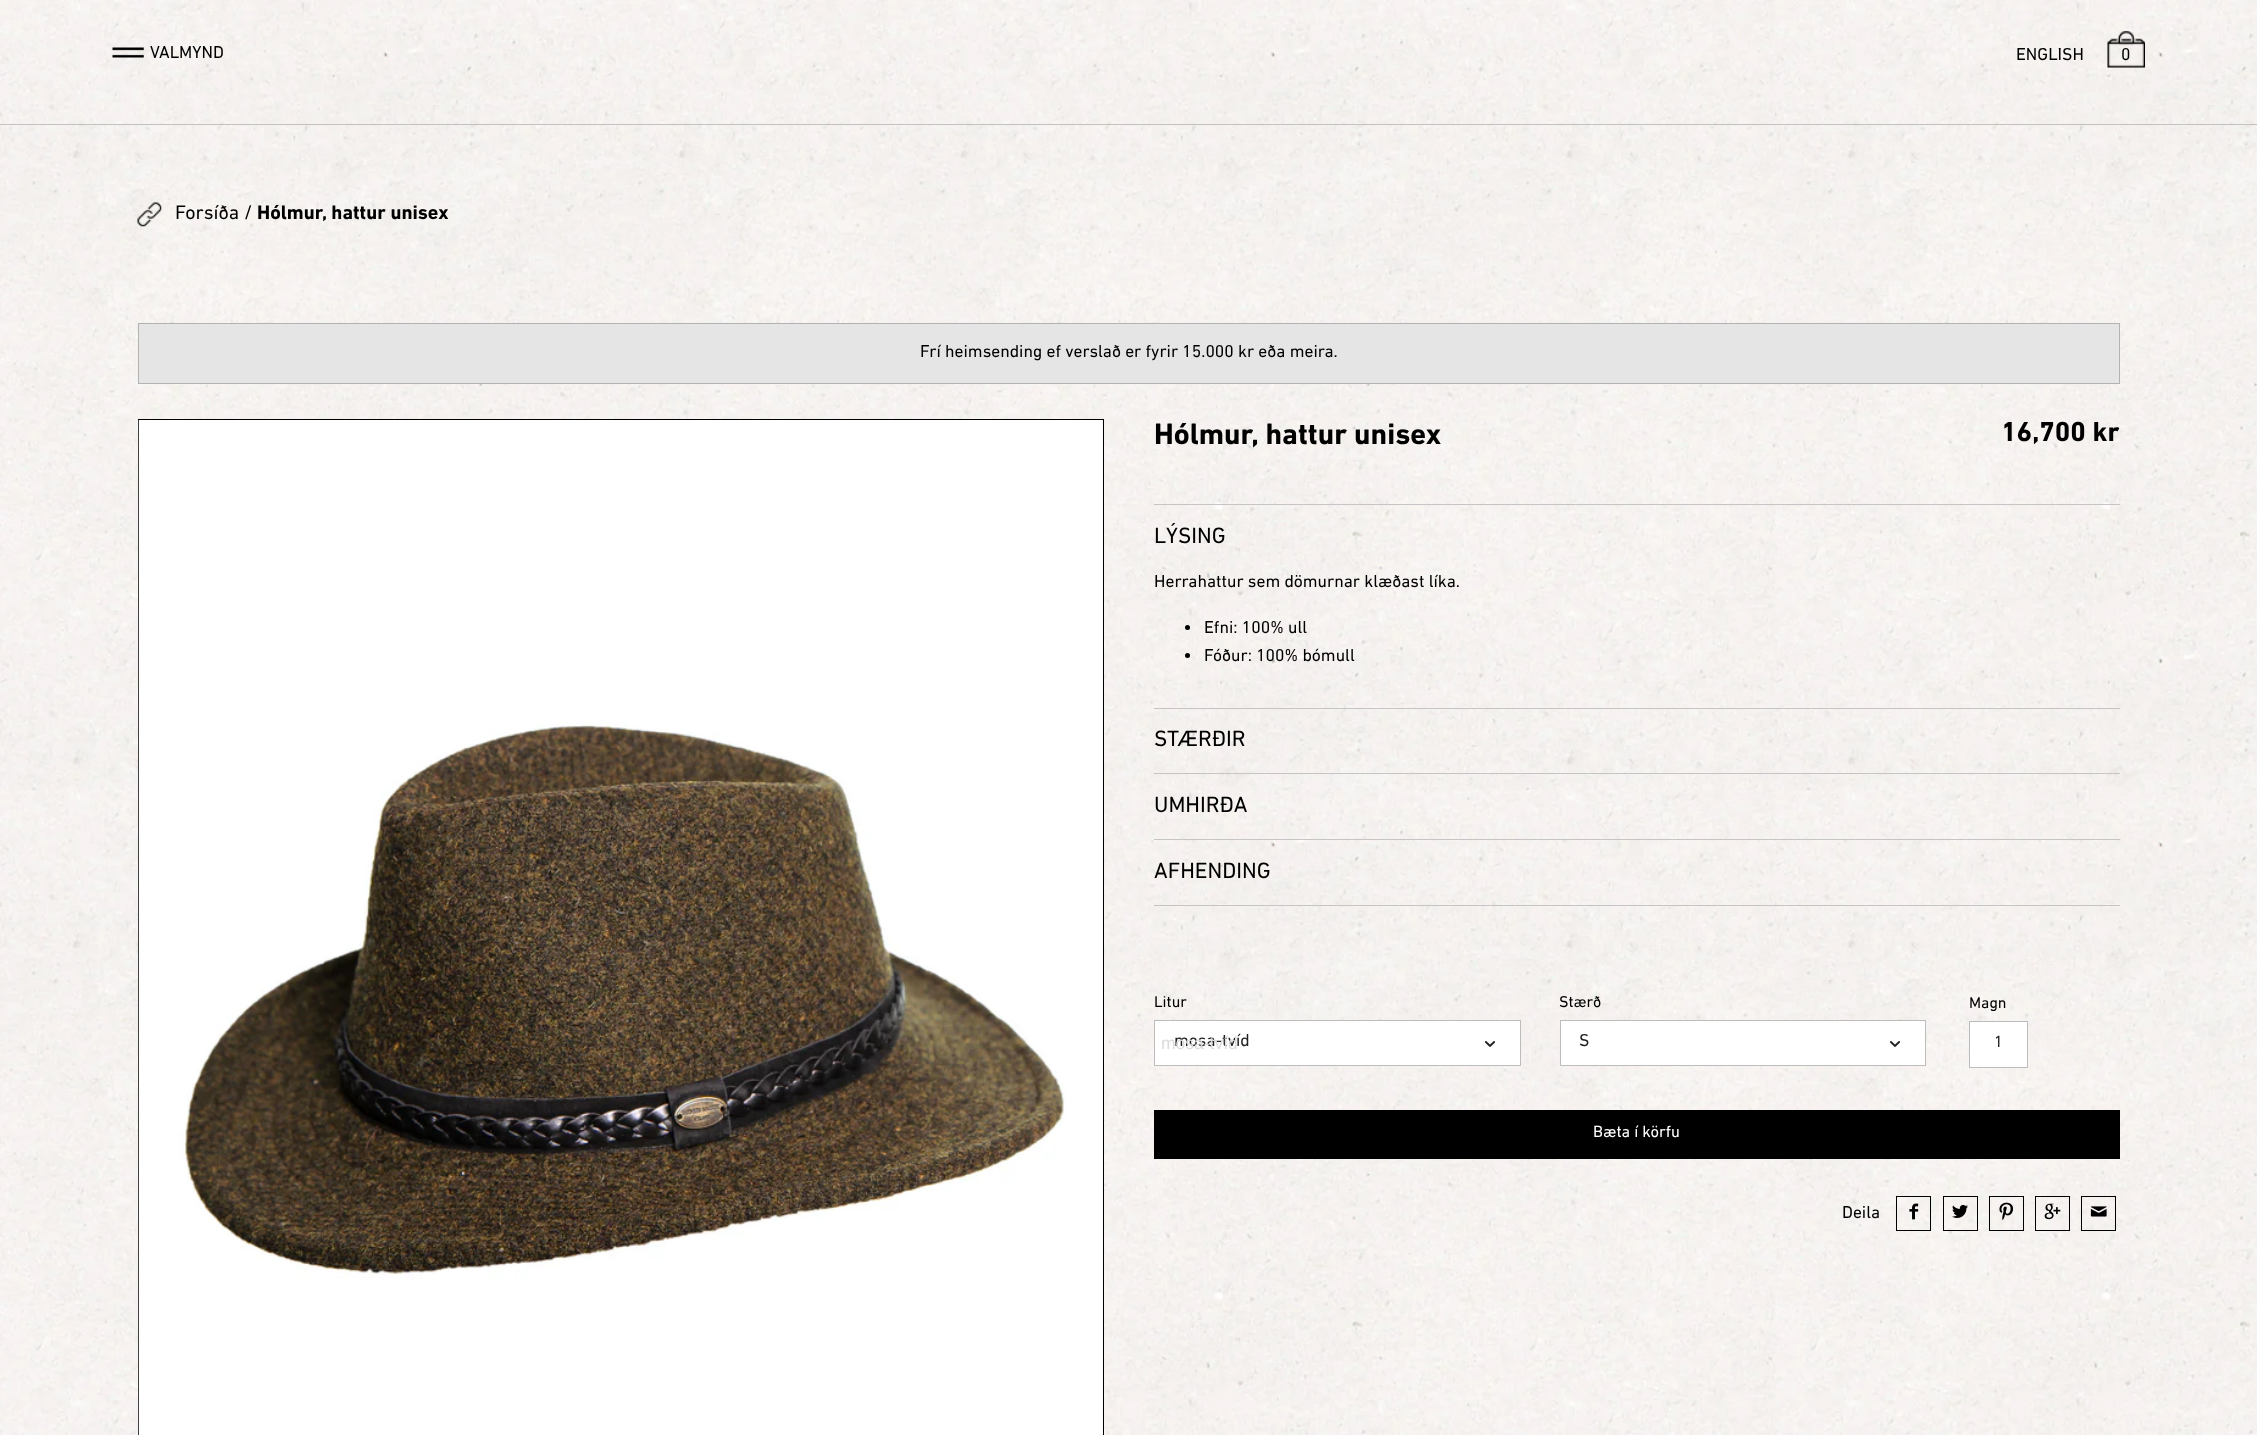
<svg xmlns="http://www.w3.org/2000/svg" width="2257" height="1435">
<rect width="100%" height="100%" fill="#fff"/>
<image x="0" y="0" width="2257" height="1435" href="media/1.png"/>
<rect y="124" width="2257" height="1" fill="#c2c1bf"/>
<image x="112" y="47" width="32" height="11" href="media/2.png"/>
<text x="150" y="58" style="font-family:DIN Next;font-size:17.5px;fill:#000">VALMYND</text>
<text x="2016" y="60" style="font-family:DIN Next;font-size:17.5px;fill:#000">ENGLISH</text>
<image x="2107" y="31" width="38" height="37" href="media/3.png"/>
<text x="2121" y="60" style="font-family:DIN Next;font-size:17.5px;fill:#000">0</text>
<image x="137" y="202" width="25" height="25" href="media/4.png"/>
<text x="175" y="219" style="font-family:DIN Next;font-size:20px;fill:#000">Forsíða /</text>
<text x="257" y="219" style="font-family:DIN Next;font-size:20px;font-weight:bold;fill:#000">Hólmur, hattur unisex</text>
<rect x="138.5" y="323.5" width="1981" height="60" fill="#e5e5e5" stroke="#b2b2b2"/>
<text x="920" y="357" style="font-family:DIN Next;font-size:17.5px;fill:#000">Frí heimsending ef verslað er fyrir 15.000 kr eða meira.</text>
<rect x="138.5" y="419.5" width="965" height="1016" fill="none" stroke="#000"/>
<image x="138" y="420" width="965" height="1015" href="media/5.png"/>
<text x="1154" y="444" style="font-family:DIN Next;font-size:30px;font-weight:bold;fill:#000">Hólmur, hattur unisex</text>
<text x="2001" y="441" style="font-family:DIN Next;font-size:28px;font-weight:bold;fill:#000">16,700 kr</text>
<rect x="1154" y="905" width="966" height="1" fill="#c6c4c4"/>
<rect x="1154" y="504" width="966" height="1" fill="#c6c4c4"/>
<text x="1154" y="543" style="font-family:DIN Next;font-size:22.5px;fill:#000">LÝSING</text>
<text x="1154" y="587" style="font-family:DIN Next;font-size:17.5px;fill:#000">Herrahattur sem dömurnar klæðast líka.</text>
<circle cx="1187.5" cy="627.5" r="2.5" fill="#000"/>
<text x="1204" y="633" style="font-family:DIN Next;font-size:17.5px;fill:#000">Efni: 100% ull</text>
<circle cx="1187.5" cy="655.5" r="2.5" fill="#000"/>
<text x="1204" y="661" style="font-family:DIN Next;font-size:17.5px;fill:#000">Fóður: 100% bómull</text>
<rect x="1154" y="708" width="966" height="1" fill="#c6c4c4"/>
<text x="1154" y="746" style="font-family:DIN Next;font-size:22.5px;fill:#000">STÆRÐIR</text>
<rect x="1154" y="773" width="966" height="1" fill="#c6c4c4"/>
<text x="1154" y="812" style="font-family:DIN Next;font-size:22.5px;fill:#000">UMHIRÐA</text>
<rect x="1154" y="839" width="966" height="1" fill="#c6c4c4"/>
<text x="1154" y="878" style="font-family:DIN Next;font-size:22.5px;fill:#000">AFHENDING</text>
<text x="1154" y="1007" style="font-family:DIN Next;font-size:16px;fill:#000">Litur</text>
<rect x="1154.5" y="1020.5" width="366" height="45" fill="#fff" stroke="#bcbcbc"/>
<text x="1174" y="1046" style="font-family:DIN Next;font-size:17.5px;fill:#222">mosa-tvíd</text>
<text x="1161" y="1049" style="font-family:Liberation Sans;font-size:17.5px;fill:#dcdcdc">mosa-tvíd</text>
<image x="1485" y="1041" width="10" height="6" href="media/6.png"/>
<text x="1559" y="1007" style="font-family:DIN Next;font-size:16px;fill:#000">Stærð</text>
<rect x="1560.5" y="1020.5" width="365" height="45" fill="#fff" stroke="#bcbcbc"/>
<text x="1579" y="1046" style="font-family:DIN Next;font-size:17.5px;fill:#222">S</text>
<image x="1890" y="1041" width="10" height="6" href="media/6.png"/>
<text x="1969" y="1008" style="font-family:DIN Next;font-size:16px;fill:#000">Magn</text>
<rect x="1969.5" y="1021.5" width="58" height="46" fill="#fff" stroke="#bcbcbc"/>
<text x="1994" y="1047" style="font-family:DIN Next;font-size:16.5px;fill:#222">1</text>
<rect x="1154" y="1110" width="966" height="49" fill="#000"/>
<text x="1593" y="1137" style="font-family:DIN Next;font-size:16.5px;fill:#fff">Bæta í körfu</text>
<text x="1842" y="1218" style="font-family:DIN Next;font-size:17.5px;fill:#000">Deila</text>
<rect x="1896.5" y="1196.5" width="34" height="34" fill="none" stroke="#000"/>
<image x="1909" y="1203" width="10" height="17" href="media/7.png"/>
<rect x="1943.5" y="1196.5" width="34" height="34" fill="none" stroke="#000"/>
<image x="1952" y="1204" width="16" height="14" href="media/8.png"/>
<rect x="1989.5" y="1196.5" width="34" height="34" fill="none" stroke="#000"/>
<image x="1999" y="1202" width="15" height="19" href="media/9.png"/>
<rect x="2035.5" y="1196.5" width="34" height="34" fill="none" stroke="#000"/>
<image x="2044" y="1203" width="17" height="17" href="media/10.png"/>
<rect x="2081.5" y="1196.5" width="34" height="34" fill="none" stroke="#000"/>
<image x="2090" y="1206" width="17" height="11" href="media/11.png"/>
</svg>
